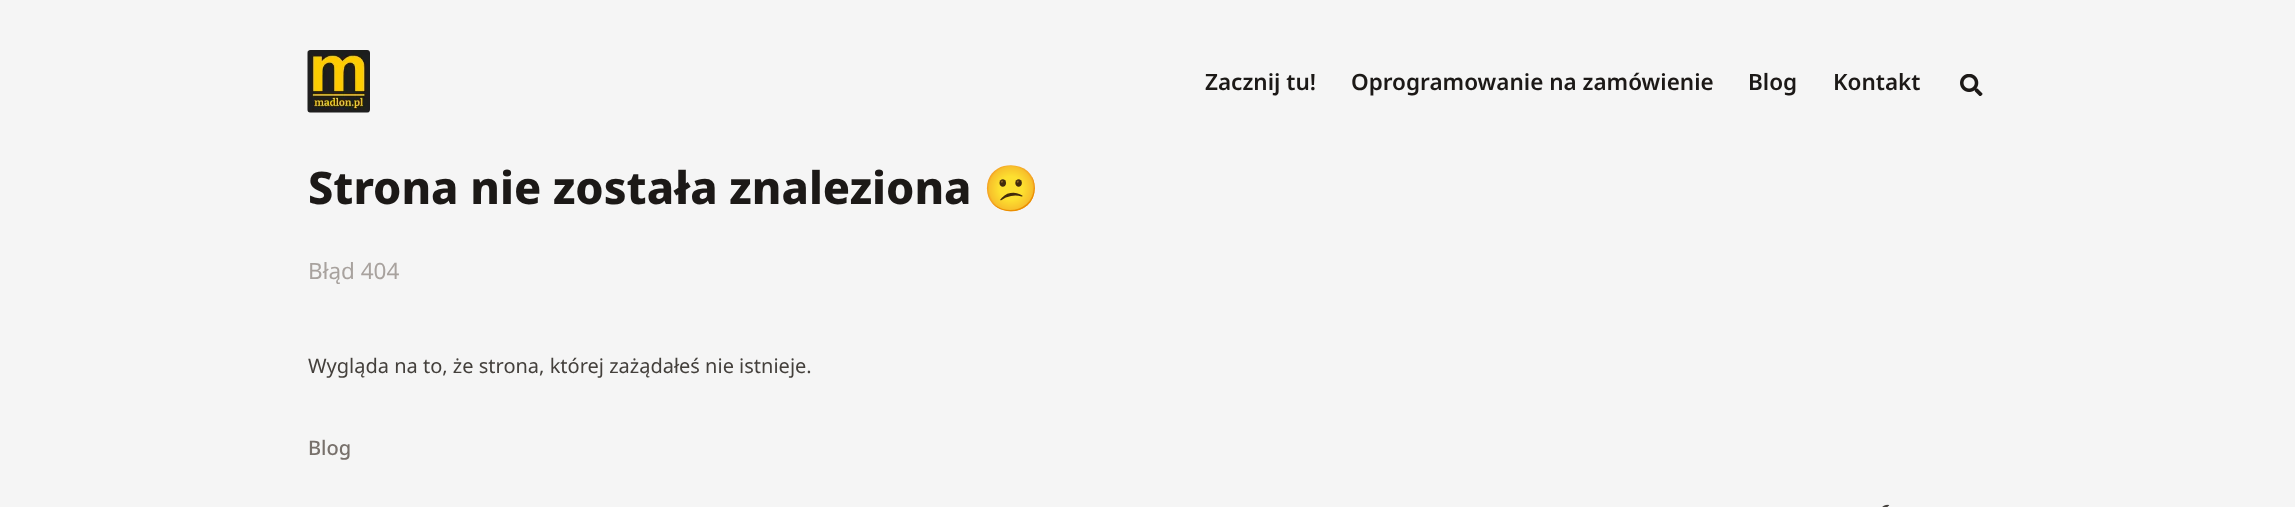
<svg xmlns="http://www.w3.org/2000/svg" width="2295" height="507">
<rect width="100%" height="100%" fill="#f5f5f5"/>
<image x="307" y="50" width="63" height="63" href="media/1.png"/>
<text x="1205" y="90" style="font-family:Noto Sans;font-size:22.5px;font-weight:600;fill:#1c1917">Zacznij tu!</text>
<text x="1351" y="90" style="font-family:Noto Sans;font-size:22.5px;font-weight:600;fill:#1c1917">Oprogramowanie na zamówienie</text>
<text x="1748" y="90" style="font-family:Noto Sans;font-size:22.5px;font-weight:600;fill:#1c1917">Blog</text>
<text x="1833" y="90" style="font-family:Noto Sans;font-size:22.5px;font-weight:600;fill:#1c1917">Kontakt</text>
<image x="1960" y="74" width="23" height="22" href="media/2.png"/>
<text x="308" y="204" style="font-family:Noto Sans;font-size:45px;font-weight:800;fill:#1c1917">Strona nie została znaleziona</text>
<text x="983" y="204" style="font-family:Noto Color Emoji;font-size:45px;font-weight:bold;fill:#1c1917">😕</text>
<text x="308" y="279" style="font-family:Noto Sans;font-size:22.5px;fill:#a8a29e">Błąd 404</text>
<text x="308" y="373" style="font-family:Noto Sans;font-size:20px;fill:#44403c">Wygląda na to, że strona, której zażądałeś nie istnieje.</text>
<text x="308" y="455" style="font-family:Noto Sans;font-size:20px;font-weight:500;fill:#78716c">Blog</text>
<image x="1882" y="504" width="8" height="3" href="media/3.png"/>
</svg>
